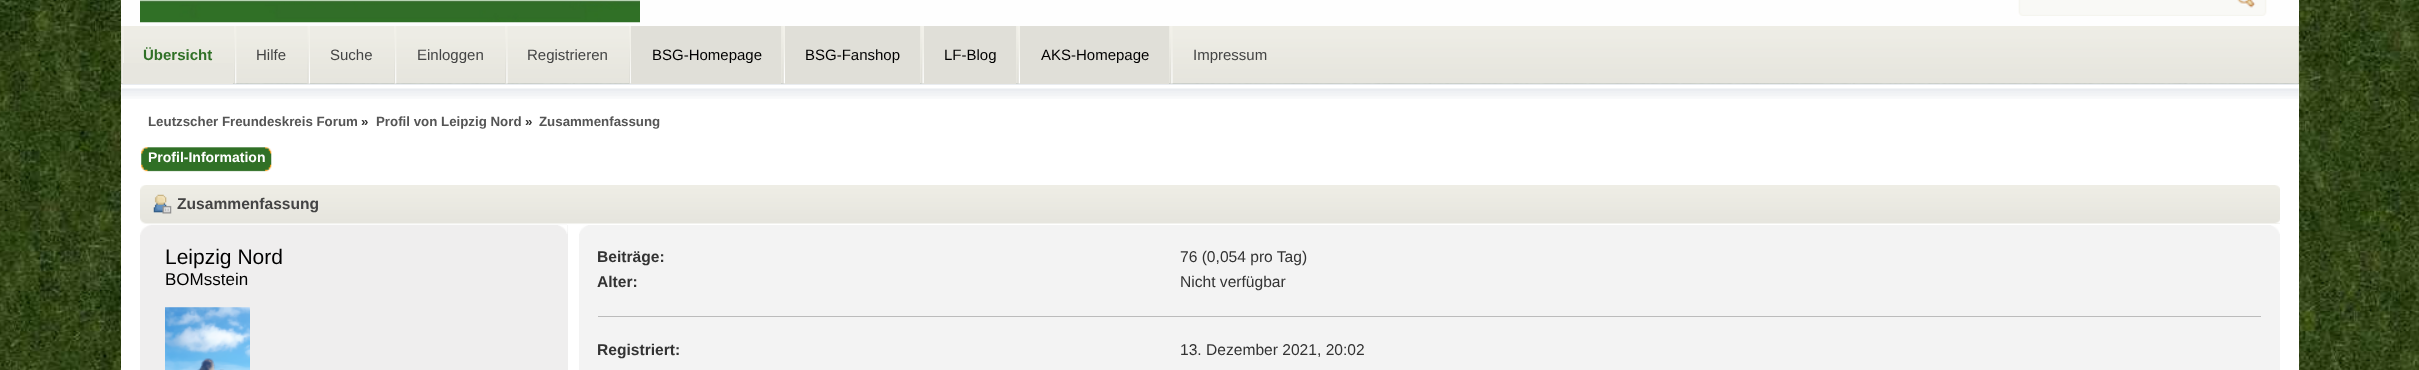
<svg xmlns="http://www.w3.org/2000/svg" width="2419" height="370">
<rect width="100%" height="100%" fill="#fff"/>
<image x="0" y="0" width="2419" height="370" href="media/1.png"/>
<rect x="121" width="2178" height="26" fill="#fefefe"/>
<image x="140" y="0" width="500" height="23" href="media/2.png"/>
<image x="2018" y="0" width="249" height="16" href="media/3.png"/>
<image x="121" y="26" width="2178" height="58" href="media/4.png"/>
<image x="121" y="26" width="2178" height="58" href="media/5.png"/>
<rect x="121" y="84" width="2178" height="286" fill="#fff"/>
<image x="121" y="83" width="2178" height="16" href="media/16.png"/>
<image x="121" y="26" width="3" height="58" href="media/6.png"/>
<rect x="123" y="63" width="110" height="21" fill="#e7e6df"/>
<text x="143" y="60" style="font-family:Liberation Sans;font-size:15px;font-weight:bold;fill:#307026">Übersicht</text>
<image x="234" y="26" width="3" height="58" href="media/7.png"/>
<text x="256" y="60" style="font-family:Liberation Sans;font-size:15px;fill:#444">Hilfe</text>
<image x="307" y="26" width="3" height="58" href="media/8.png"/>
<text x="330" y="60" style="font-family:Liberation Sans;font-size:15px;fill:#444">Suche</text>
<image x="394" y="26" width="3" height="58" href="media/9.png"/>
<text x="417" y="60" style="font-family:Liberation Sans;font-size:15px;fill:#444">Einloggen</text>
<image x="505" y="26" width="3" height="58" href="media/10.png"/>
<text x="527" y="60" style="font-family:Liberation Sans;font-size:15px;fill:#444">Registrieren</text>
<image x="629" y="26" width="2" height="58" href="media/11.png"/>
<rect x="631" y="26" width="150" height="58" fill="#e0dfd8"/>
<text x="652" y="60" style="font-family:Liberation Sans;font-size:15px;fill:#000">BSG-Homepage</text>
<image x="782" y="26" width="3" height="58" href="media/12.png"/>
<rect x="785" y="26" width="135" height="58" fill="#e0dfd8"/>
<text x="805" y="60" style="font-family:Liberation Sans;font-size:15px;fill:#000">BSG-Fanshop</text>
<image x="921" y="26" width="3" height="58" href="media/13.png"/>
<rect x="924" y="26" width="92" height="58" fill="#e0dfd8"/>
<text x="944" y="60" style="font-family:Liberation Sans;font-size:15px;fill:#000">LF-Blog</text>
<image x="1017" y="26" width="3" height="58" href="media/14.png"/>
<rect x="1020" y="26" width="149" height="58" fill="#e0dfd8"/>
<text x="1041" y="60" style="font-family:Liberation Sans;font-size:15px;fill:#000">AKS-Homepage</text>
<image x="1170" y="26" width="3" height="58" href="media/15.png"/>
<text x="1193" y="60" style="font-family:Liberation Sans;font-size:15px;fill:#444">Impressum</text>
<text x="148" y="126" style="font-family:Liberation Sans;font-size:13.3px;font-weight:bold;fill:#555">Leutzscher Freundeskreis Forum</text>
<text x="361" y="126" style="font-family:Liberation Sans;font-size:13.3px;font-weight:bold;fill:#333">»</text>
<text x="376" y="126" style="font-family:Liberation Sans;font-size:13.3px;font-weight:bold;fill:#555">Profil von Leipzig Nord</text>
<text x="525" y="126" style="font-family:Liberation Sans;font-size:13.3px;font-weight:bold;fill:#333">»</text>
<text x="539" y="126" style="font-family:Liberation Sans;font-size:13.3px;font-weight:bold;fill:#555">Zusammenfassung</text>
<image x="265" y="147" width="7" height="25" href="media/17.png"/>
<image x="141" y="147" width="124" height="25" href="media/18.png"/>
<text x="148" y="162" style="font-family:Liberation Sans;font-size:14px;font-weight:bold;fill:#fff">Profil-Information</text>
<image x="140" y="185" width="2140" height="39" href="media/19.png"/>
<image x="2275" y="185" width="5" height="39" href="media/20.png"/>
<image x="153" y="194" width="19" height="20" href="media/21.png"/>
<text x="177" y="209" style="font-family:Liberation Sans;font-size:15.6px;font-weight:bold;fill:#444">Zusammenfassung</text>
<rect x="140" y="225" width="428" height="145" fill="#efeeee"/>
<image x="140" y="224" width="427" height="11" href="media/22.png"/>
<image x="558" y="225" width="10" height="9" href="media/23.png"/>
<text x="165" y="264" style="font-family:Liberation Sans;font-size:21px;fill:#000">Leipzig Nord</text>
<text x="165" y="285" style="font-family:Liberation Sans;font-size:17px;fill:#000">BOMsstein</text>
<image x="165" y="307" width="85" height="63" href="media/24.png"/>
<rect x="579" y="225" width="1701" height="145" fill="#f3f3f3"/>
<image x="579" y="225" width="9" height="9" href="media/25.png"/>
<image x="2271" y="225" width="9" height="9" href="media/26.png"/>
<rect x="598" y="316" width="1663" height="1" fill="#bbb"/>
<text x="597" y="262" style="font-family:Liberation Sans;font-size:15.6px;font-weight:bold;fill:#333">Beiträge:</text>
<text x="1180" y="262" style="font-family:Liberation Sans;font-size:15.6px;fill:#333">76 (0,054 pro Tag)</text>
<text x="597" y="287" style="font-family:Liberation Sans;font-size:15.6px;font-weight:bold;fill:#333">Alter:</text>
<text x="1180" y="287" style="font-family:Liberation Sans;font-size:15.6px;fill:#333">Nicht verfügbar</text>
<text x="597" y="355" style="font-family:Liberation Sans;font-size:15.6px;font-weight:bold;fill:#333">Registriert:</text>
<text x="1180" y="355" style="font-family:Liberation Sans;font-size:15.6px;fill:#333">13. Dezember 2021, 20:02</text>
</svg>
